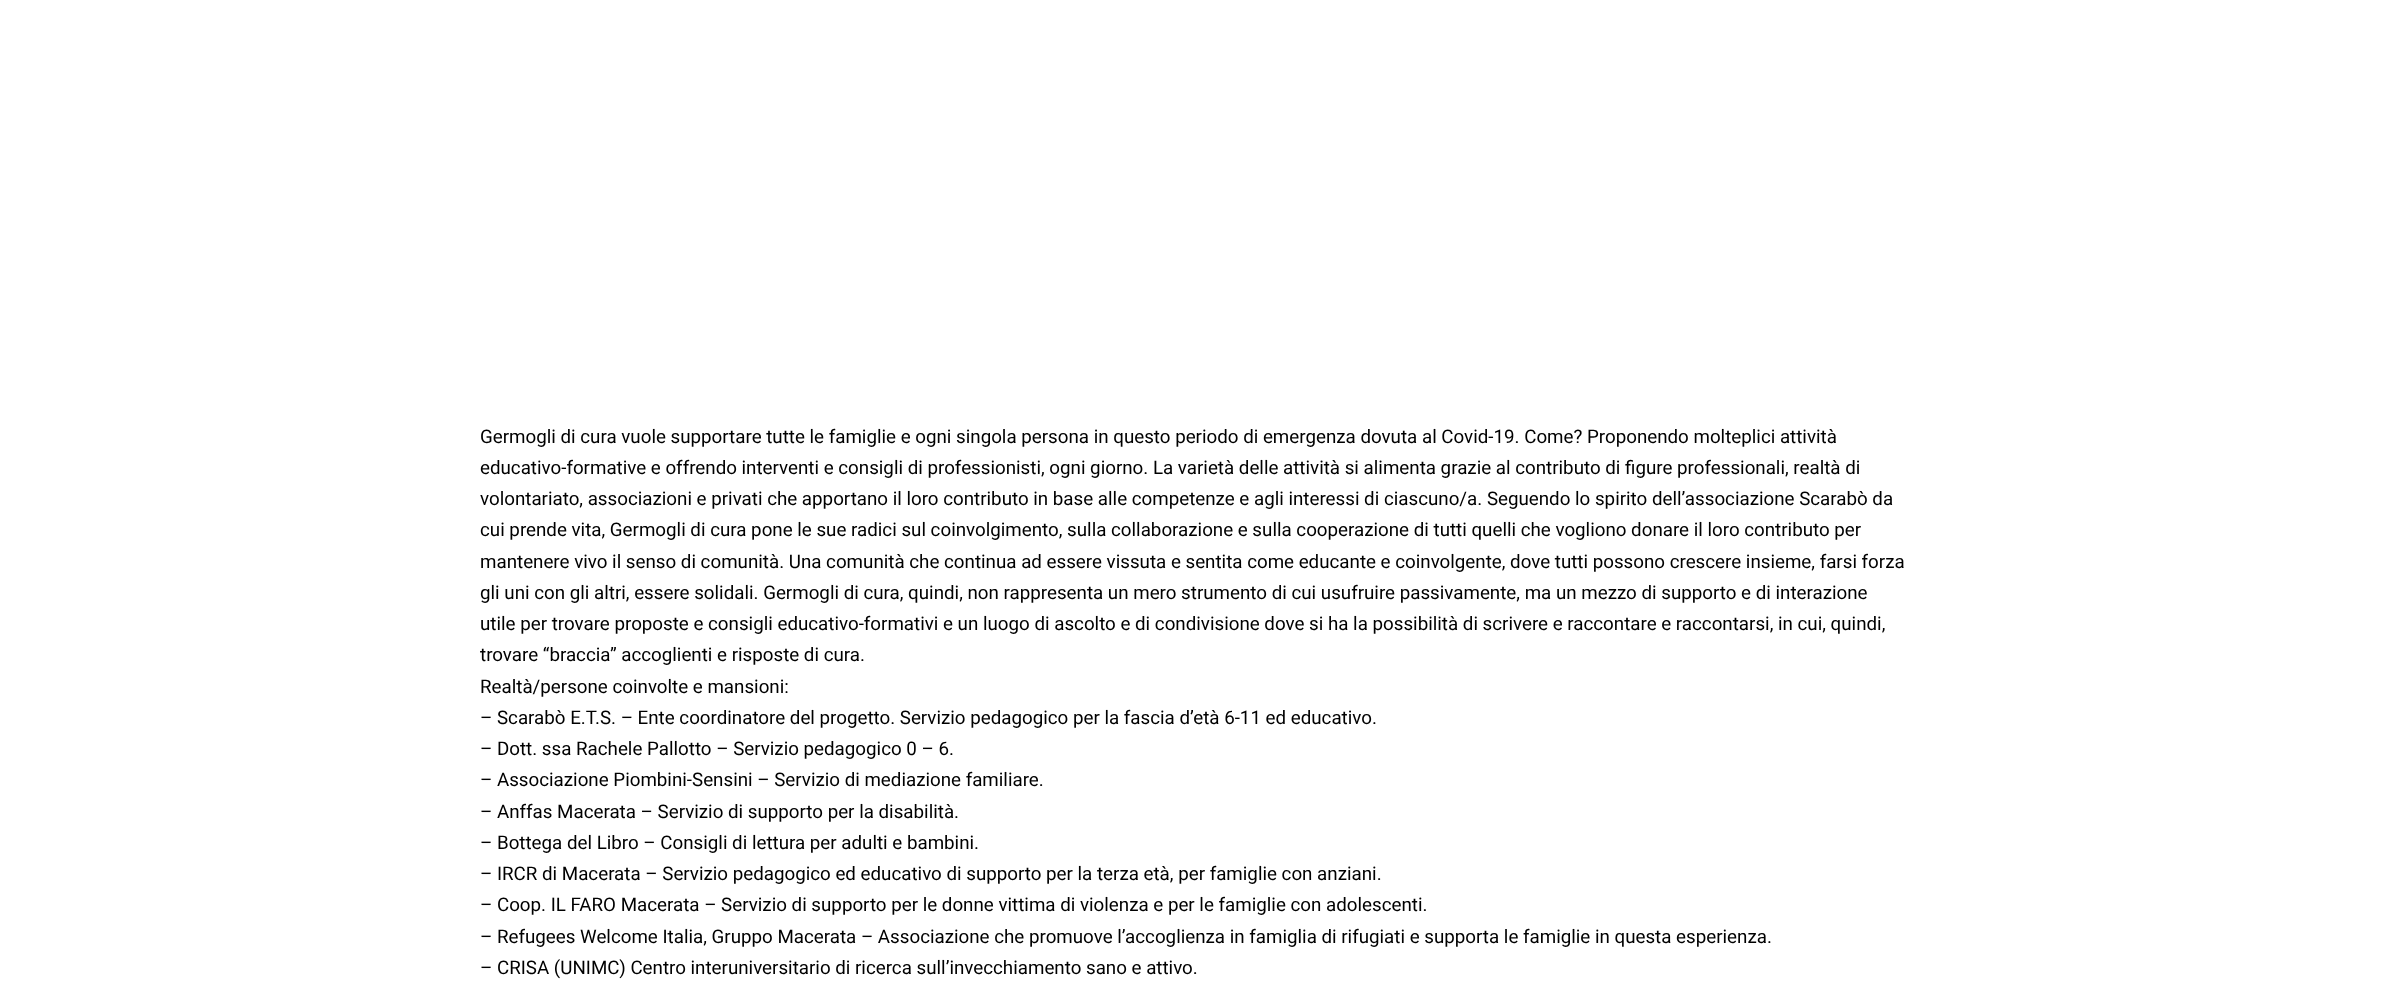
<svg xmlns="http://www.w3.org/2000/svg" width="2385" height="992">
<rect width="100%" height="100%" fill="#fff"/>
<text x="480" y="443" style="font-family:Roboto;font-size:18.75px;fill:#000">Germogli di cura vuole supportare tutte le famiglie e ogni singola persona in questo periodo di emergenza dovuta al Covid-19. Come? Proponendo molteplici attività</text>
<text x="480" y="474" style="font-family:Roboto;font-size:18.75px;fill:#000">educativo-formative e offrendo interventi e consigli di professionisti, ogni giorno. La varietà delle attività si alimenta grazie al contributo di figure professionali, realtà di</text>
<text x="480" y="505" style="font-family:Roboto;font-size:18.75px;fill:#000">volontariato, associazioni e privati che apportano il loro contributo in base alle competenze e agli interessi di ciascuno/a. Seguendo lo spirito dell’associazione Scarabò da</text>
<text x="480" y="536" style="font-family:Roboto;font-size:18.75px;fill:#000">cui prende vita, Germogli di cura pone le sue radici sul coinvolgimento, sulla collaborazione e sulla cooperazione di tutti quelli che vogliono donare il loro contributo per</text>
<text x="480" y="568" style="font-family:Roboto;font-size:18.75px;fill:#000">mantenere vivo il senso di comunità. Una comunità che continua ad essere vissuta e sentita come educante e coinvolgente, dove tutti possono crescere insieme, farsi forza</text>
<text x="480" y="599" style="font-family:Roboto;font-size:18.75px;fill:#000">gli uni con gli altri, essere solidali. Germogli di cura, quindi, non rappresenta un mero strumento di cui usufruire passivamente, ma un mezzo di supporto e di interazione</text>
<text x="480" y="630" style="font-family:Roboto;font-size:18.75px;fill:#000">utile per trovare proposte e consigli educativo-formativi e un luogo di ascolto e di condivisione dove si ha la possibilità di scrivere e raccontare e raccontarsi, in cui, quindi,</text>
<text x="480" y="661" style="font-family:Roboto;font-size:18.75px;fill:#000">trovare “braccia” accoglienti e risposte di cura.</text>
<text x="480" y="693" style="font-family:Roboto;font-size:18.75px;fill:#000">Realtà/persone coinvolte e mansioni:</text>
<text x="480" y="724" style="font-family:Roboto;font-size:18.75px;fill:#000">– Scarabò E.T.S. – Ente coordinatore del progetto. Servizio pedagogico per la fascia d’età 6-11 ed educativo.</text>
<text x="480" y="755" style="font-family:Roboto;font-size:18.75px;fill:#000">– Dott. ssa Rachele Pallotto – Servizio pedagogico 0 – 6.</text>
<text x="480" y="786" style="font-family:Roboto;font-size:18.75px;fill:#000">– Associazione Piombini-Sensini – Servizio di mediazione familiare.</text>
<text x="480" y="818" style="font-family:Roboto;font-size:18.75px;fill:#000">– Anffas Macerata – Servizio di supporto per la disabilità.</text>
<text x="480" y="849" style="font-family:Roboto;font-size:18.75px;fill:#000">– Bottega del Libro – Consigli di lettura per adulti e bambini.</text>
<text x="480" y="880" style="font-family:Roboto;font-size:18.75px;fill:#000">– IRCR di Macerata – Servizio pedagogico ed educativo di supporto per la terza età, per famiglie con anziani.</text>
<text x="480" y="911" style="font-family:Roboto;font-size:18.75px;fill:#000">– Coop. IL FARO Macerata – Servizio di supporto per le donne vittima di violenza e per le famiglie con adolescenti.</text>
<text x="480" y="943" style="font-family:Roboto;font-size:18.75px;fill:#000">– Refugees Welcome Italia, Gruppo Macerata – Associazione che promuove l’accoglienza in famiglia di rifugiati e supporta le famiglie in questa esperienza.</text>
<text x="480" y="974" style="font-family:Roboto;font-size:18.75px;fill:#000">– CRISA (UNIMC) Centro interuniversitario di ricerca sull’invecchiamento sano e attivo.</text>
</svg>
